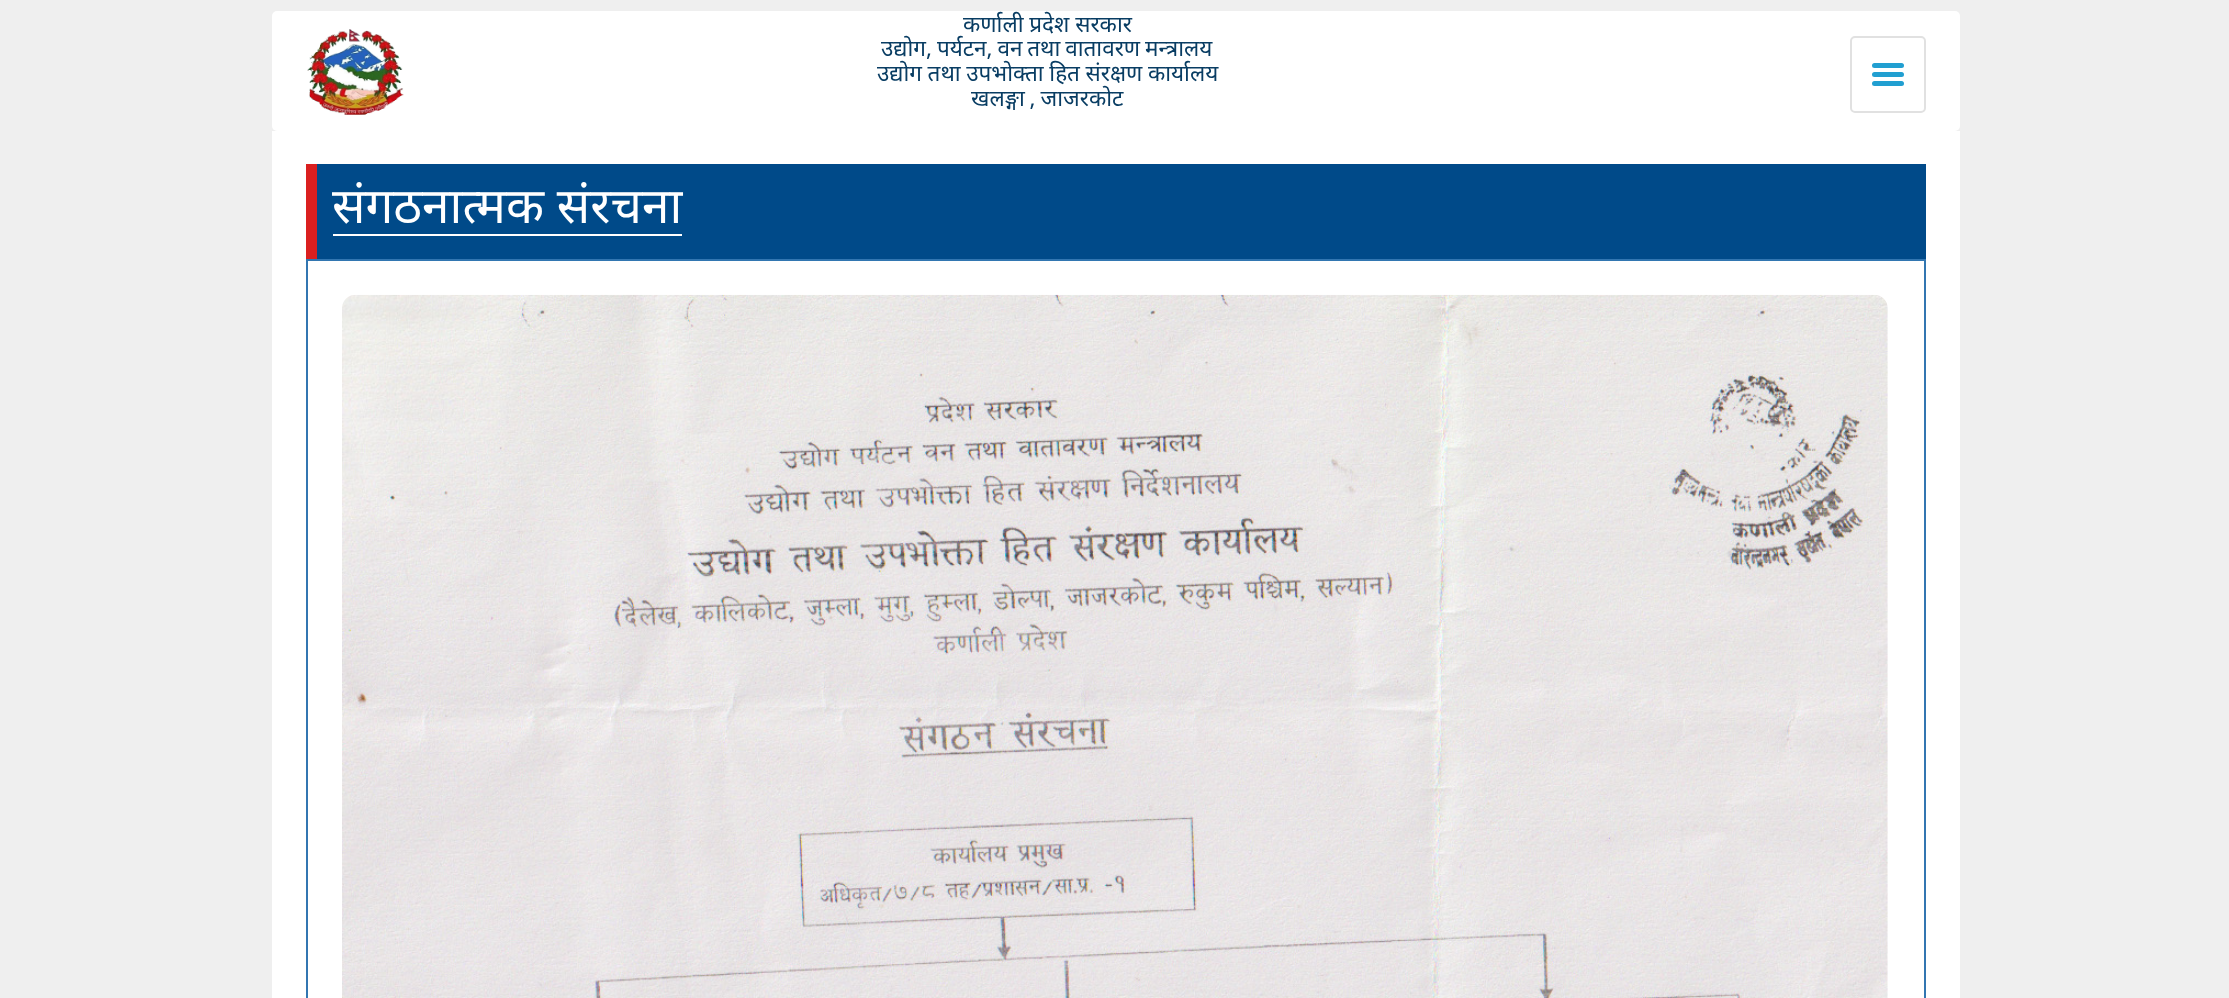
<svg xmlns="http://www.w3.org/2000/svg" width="2229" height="998">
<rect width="100%" height="100%" fill="#efefef"/>
<rect x="272" y="11" width="1688" height="120" rx="5" fill="#fff"/>
<image x="307" y="29" width="97" height="86" href="media/1.png"/>
<text x="963" y="32" style="font-family:Noto Sans;font-size:22.5px;fill:#093d63">कर्णाली प्रदेश सरकार</text>
<text x="881" y="56" word-spacing="-1" style="font-family:Noto Sans;font-size:22.5px;fill:#093d63">उद्योग, पर्यटन, वन तथा वातावरण मन्त्रालय</text>
<text x="877" y="81" word-spacing="-0.25" style="font-family:Noto Sans;font-size:22.5px;fill:#093d63">उद्योग तथा उपभोक्ता हित संरक्षण कार्यालय</text>
<text x="971" y="106" word-spacing="-1" style="font-family:Noto Sans;font-size:22.5px;fill:#093d63">खलङ्गा , जाजरकोट</text>
<rect x="1851" y="37" width="74" height="75" rx="4" fill="none" stroke="#e1e1e1" stroke-width="2"/>
<rect x="1872" y="63" width="32" height="5" rx="2.5" fill="#219fd1"/>
<rect x="1872" y="72" width="32" height="5" rx="2.5" fill="#219fd1"/>
<rect x="1872" y="81" width="32" height="5" rx="2.5" fill="#219fd1"/>
<rect x="272" y="131" width="1688" height="867" fill="#fff"/>
<rect x="317" y="164" width="1609" height="95" fill="#004a89"/>
<rect x="306" y="164" width="11" height="95" fill="#da1f1f"/>
<rect x="333" y="234" width="349" height="2" fill="#fff"/>
<text x="332" y="223" style="font-family:Noto Sans;font-size:49.5px;fill:#fff">संगठनात्मक संरचना</text>
<rect x="307" y="260" width="1618" height="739" fill="none" stroke="#3276b1" stroke-width="2"/>
<image x="342" y="294" width="1546" height="704" href="media/2.png"/>
</svg>
